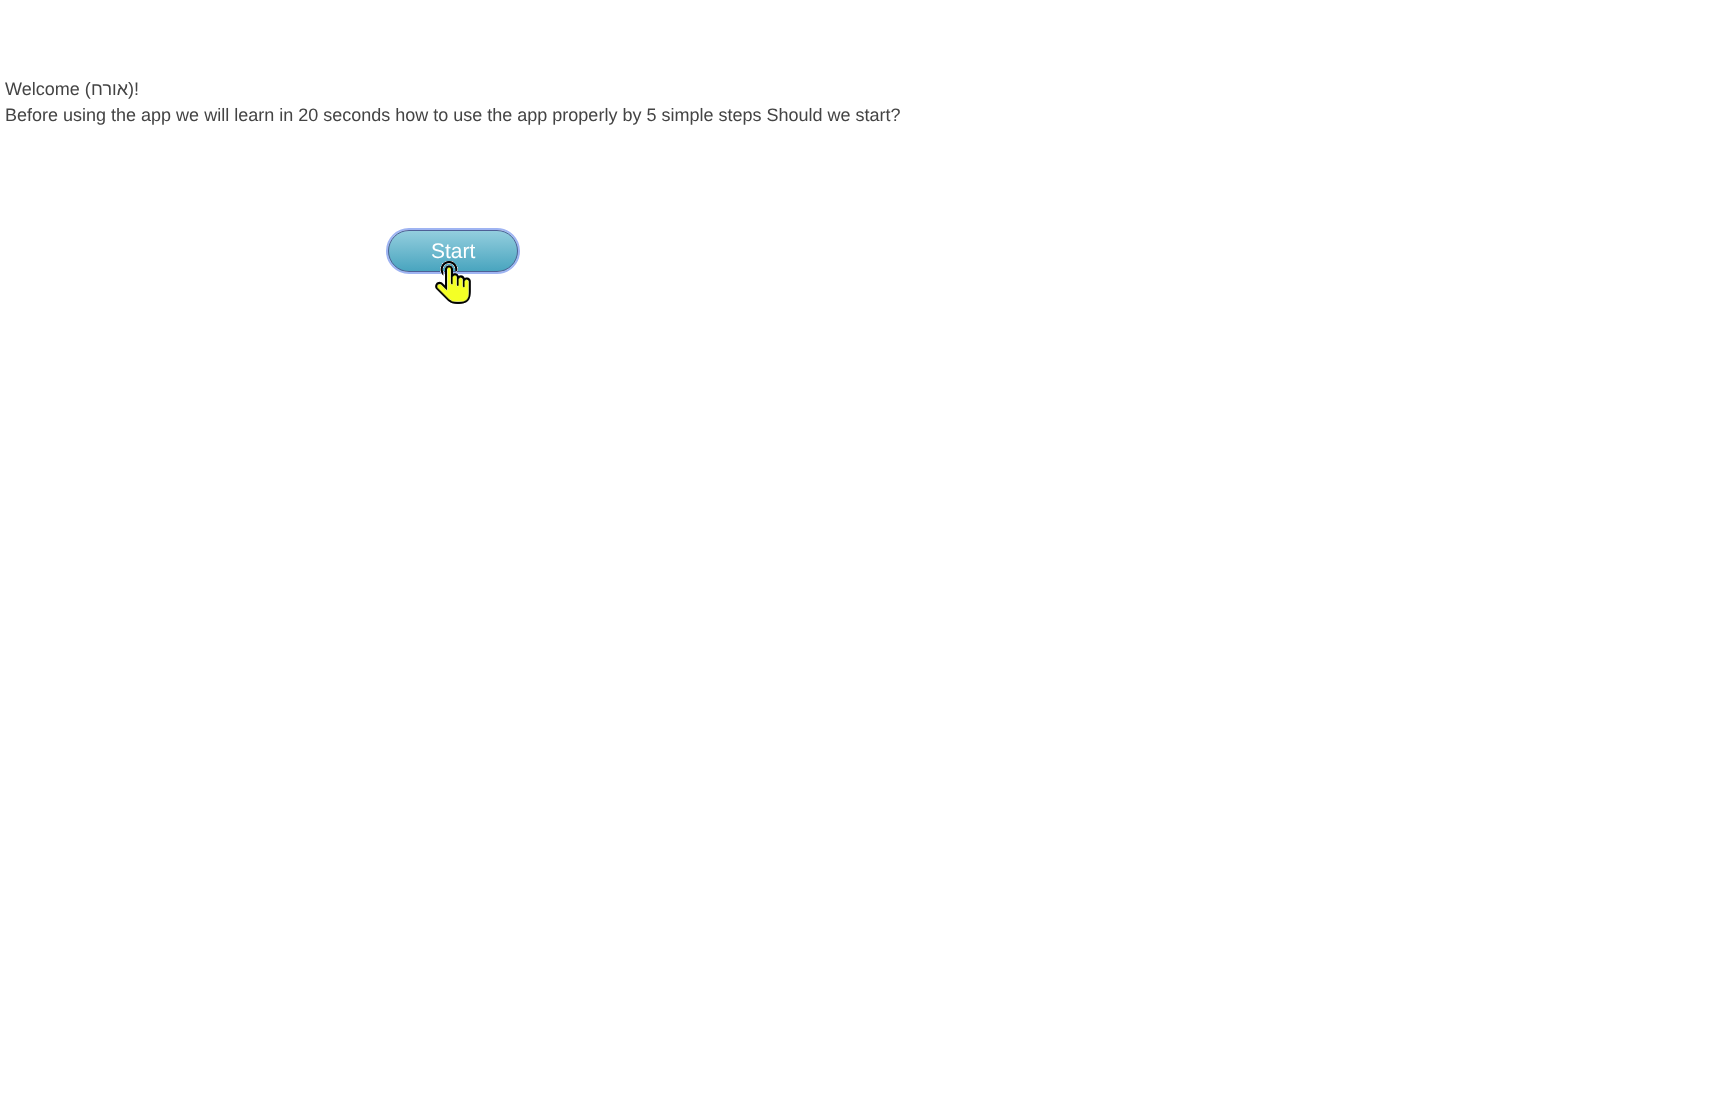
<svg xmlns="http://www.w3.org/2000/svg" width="1728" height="1118">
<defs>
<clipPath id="clip1"><rect x="388" y="230" width="130" height="42" rx="21"/></clipPath>
<linearGradient id="g1" gradientUnits="userSpaceOnUse" x1="453" y1="231" x2="453" y2="271"><stop offset="0" stop-color="#93cede"/><stop offset="0.41" stop-color="#75bdd1"/><stop offset="1" stop-color="#49a5bf"/></linearGradient>
</defs>
<rect width="100%" height="100%" fill="#fff"/>
<text x="5" y="95" style="font-family:Liberation Sans;font-size:18px;fill:#444">Welcome (</text>
<text x="128" y="95" style="font-family:Liberation Sans;font-size:18px;direction:rtl;fill:#444">אורח</text>
<text x="128" y="95" style="font-family:Liberation Sans;font-size:18px;fill:#444">)!</text>
<text x="5" y="121" style="font-family:Liberation Sans;font-size:18px;fill:#444">Before using the app we will learn in 20 seconds how to use the app properly by 5 simple steps Should we start?</text>
<rect x="387" y="229" width="132" height="44" rx="22" fill="none" stroke="#9fb4f2" stroke-width="2"/>
<g clip-path="url(#clip1)">
<rect x="388" y="231" width="130" height="40" fill="url(#g1)"/>
</g>
<rect x="388.5" y="230.5" width="129" height="41" rx="20.5" fill="none" stroke="#4e6096"/>
<text x="431" y="258" style="font-family:Liberation Sans;font-size:21px;fill:#fff">Start</text>
<image x="435" y="261" width="36" height="43" href="media/1.png"/>
</svg>
